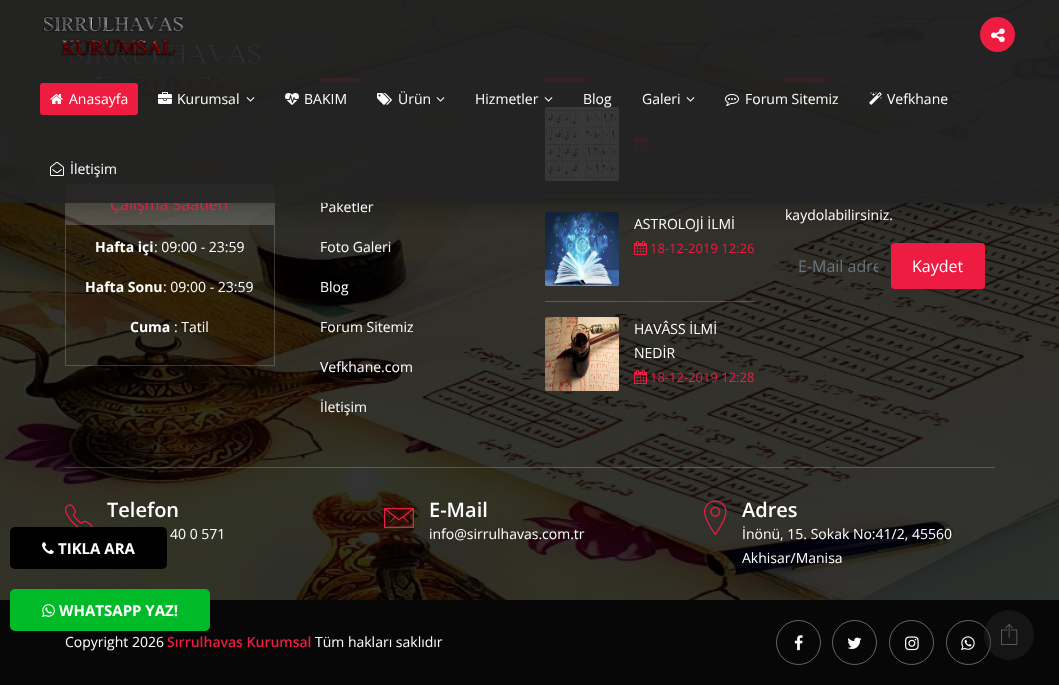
<svg xmlns="http://www.w3.org/2000/svg" width="1059" height="685">
<defs>
<clipPath id="clip1"><rect x="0" y="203" width="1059" height="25"/></clipPath>
<clipPath id="clip2"><rect x="798" y="255" width="80" height="22"/></clipPath>
</defs>
<rect width="100%" height="100%" fill="#fff"/>
<image x="0" y="0" width="1059" height="600" href="media/14.png"/>
<image x="69" y="43" width="193" height="55" href="media/15.png"/>
<path d="M70 184h200c3 0 5 2 5 5v35h-210v-35c0-3 2-5 5-5z" fill="#ffffff33"/>
<rect x="65.5" y="224.5" width="209" height="141" fill="none" stroke="#ffffff33"/>
<rect x="320" y="78" width="40" height="4" fill="#ed1c40"/>
<rect x="545" y="78" width="40" height="4" fill="#ed1c40"/>
<rect x="545" y="196" width="210" height="1" fill="#ffffff33"/>
<image x="545" y="107" width="74" height="74" href="media/16.png"/>
<image x="634" y="136" width="13" height="14" href="media/17.png"/>
<image x="545" y="212" width="74" height="74" href="media/18.png"/>
<image x="634" y="241" width="13" height="14" href="media/19.png"/>
<rect x="785" y="78" width="40" height="4" fill="#ed1c40"/>
<rect x="785.5" y="243.5" width="105" height="44" fill="none" stroke="#2f2f2f"/>
<rect x="891.5" y="243.5" width="93" height="45" rx="2.5" fill="#ed1c40" stroke="#ed1c40"/>
<g clip-path="url(#clip1)">
<rect width="1059" height="203" fill="#00000066" filter="blur(15px)"/>
</g>
<text x="110" y="210" style="font-family:Open Sans;font-size:16px;fill:#ed1c40">Çalışma Saatleri</text>
<text x="320" y="212" style="font-family:Open Sans;font-size:14px;fill:#fff">Paketler</text>
<rect width="1059" height="203" fill="#222222e6"/>
<image x="43" y="16" width="141" height="40" href="media/1.png"/>
<circle cx="997.5" cy="34.5" r="17.5" fill="#ed1c40"/>
<image x="991" y="28" width="14" height="15" href="media/2.png"/>
<rect x="40" y="83" width="98" height="32" rx="3" fill="#ed1c40"/>
<image x="50" y="94" width="13" height="10" href="media/3.png"/>
<text x="69" y="104" style="font-family:Open Sans;font-size:14px;fill:#fff">Anasayfa</text>
<image x="158" y="92" width="14" height="12" href="media/4.png"/>
<text x="177" y="104" style="font-family:Open Sans;font-size:14px;fill:#fff">Kurumsal</text>
<image x="246" y="97" width="9" height="5" href="media/5.png"/>
<image x="285" y="93" width="14" height="12" href="media/6.png"/>
<text x="304" y="104" style="font-family:Open Sans;font-size:14px;fill:#fff">BAKIM</text>
<image x="377" y="93" width="15" height="12" href="media/7.png"/>
<text x="398" y="104" style="font-family:Open Sans;font-size:14px;fill:#fff">Ürün</text>
<image x="436" y="97" width="9" height="5" href="media/8.png"/>
<text x="475" y="104" style="font-family:Open Sans;font-size:14px;fill:#fff">Hizmetler</text>
<image x="544" y="97" width="9" height="5" href="media/9.png"/>
<text x="583" y="104" style="font-family:Open Sans;font-size:14px;fill:#fff">Blog</text>
<text x="642" y="104" style="font-family:Open Sans;font-size:14px;fill:#fff">Galeri</text>
<image x="686" y="97" width="9" height="5" href="media/10.png"/>
<image x="725" y="94" width="14" height="12" href="media/11.png"/>
<text x="745" y="104" style="font-family:Open Sans;font-size:14px;fill:#fff">Forum Sitemiz</text>
<image x="869" y="92" width="13" height="13" href="media/12.png"/>
<text x="887" y="104" style="font-family:Open Sans;font-size:14px;fill:#fff">Vefkhane</text>
<image x="50" y="162" width="14" height="14" href="media/13.png"/>
<text x="70" y="174" style="font-family:Open Sans;font-size:14px;fill:#fff">İletişim</text>
<text x="95" y="252" style="font-family:Open Sans;font-size:14px;font-weight:bold;fill:#fff">Hafta içi</text>
<text x="154" y="252" style="font-family:Open Sans;font-size:14px;fill:#fff">: 09:00 - 23:59</text>
<text x="85" y="292" style="font-family:Open Sans;font-size:14px;font-weight:bold;fill:#fff">Hafta Sonu</text>
<text x="163" y="292" style="font-family:Open Sans;font-size:14px;fill:#fff">: 09:00 - 23:59</text>
<text x="130" y="332" style="font-family:Open Sans;font-size:14px;font-weight:bold;fill:#fff">Cuma</text>
<text x="174" y="332" style="font-family:Open Sans;font-size:14px;fill:#fff">: Tatil</text>
<text x="320" y="252" style="font-family:Open Sans;font-size:14px;fill:#fff">Foto Galeri</text>
<text x="320" y="292" style="font-family:Open Sans;font-size:14px;fill:#fff">Blog</text>
<text x="320" y="332" style="font-family:Open Sans;font-size:14px;fill:#fff">Forum Sitemiz</text>
<text x="320" y="372" style="font-family:Open Sans;font-size:14px;fill:#fff">Vefkhane.com</text>
<text x="320" y="412" style="font-family:Open Sans;font-size:14px;fill:#fff">İletişim</text>
<rect x="545" y="301" width="210" height="1" fill="#ffffff33"/>
<text x="634" y="229" style="font-family:Open Sans;font-size:14px;fill:#fff">ASTROLOJİ İLMİ</text>
<text x="650" y="253" style="font-family:Open Sans;font-size:13px;fill:#ed1c40">18-12-2019 12:26</text>
<image x="545" y="317" width="74" height="74" href="media/20.png"/>
<text x="634" y="334" style="font-family:Open Sans;font-size:14px;fill:#fff">HAVÂSS İLMİ</text>
<text x="634" y="358" style="font-family:Open Sans;font-size:14px;fill:#fff">NEDİR</text>
<image x="634" y="370" width="13" height="14" href="media/21.png"/>
<text x="650" y="382" style="font-family:Open Sans;font-size:13px;fill:#ed1c40">18-12-2019 12:28</text>
<text x="785" y="220" style="font-family:Open Sans;font-size:14px;fill:#fff">kaydolabilirsiniz.</text>
<g clip-path="url(#clip2)">
<text x="798" y="272" style="font-family:Open Sans;font-size:16px;fill:#6c757d">E-Mail adre</text>
</g>
<text x="912" y="272" style="font-family:Open Sans;font-size:16px;fill:#fff">Kaydet</text>
<rect x="65" y="467" width="930" height="1" fill="#ffffff33"/>
<image x="65" y="504" width="28" height="23" href="media/22.png"/>
<text x="107" y="517" style="font-family:Open Sans;font-size:20px;font-weight:600;fill:#fff">Telefon</text>
<text x="170" y="539" style="font-family:Open Sans;font-size:14px;fill:#fff">40 0 571</text>
<image x="384" y="508" width="30" height="20" href="media/23.png"/>
<text x="429" y="517" style="font-family:Open Sans;font-size:20px;font-weight:600;fill:#fff">E-Mail</text>
<text x="429" y="539" style="font-family:Open Sans;font-size:14px;fill:#fff">info@sirrulhavas.com.tr</text>
<image x="704" y="500" width="23" height="36" href="media/24.png"/>
<text x="742" y="517" style="font-family:Open Sans;font-size:20px;font-weight:600;fill:#fff">Adres</text>
<text x="742" y="539" style="font-family:Open Sans;font-size:14px;fill:#fff">İnönü, 15. Sokak No:41/2, 45560</text>
<text x="742" y="563" style="font-family:Open Sans;font-size:14px;fill:#fff">Akhisar/Manisa</text>
<rect y="600" width="1059" height="85" fill="#070707"/>
<text x="65" y="647" style="font-family:Open Sans;font-size:14px;fill:#fff">Copyright 2026</text>
<text x="167" y="647" style="font-family:Open Sans;font-size:14px;font-weight:600;fill:#ed1c40">Sırrulhavas Kurumsal</text>
<text x="315" y="647" style="font-family:Open Sans;font-size:14px;fill:#fff">Tüm hakları saklıdır</text>
<circle cx="798.5" cy="642.5" r="22" fill="none" stroke="#666"/>
<image x="794" y="635" width="9" height="16" href="media/25.png"/>
<circle cx="854.5" cy="642.5" r="22" fill="none" stroke="#666"/>
<image x="847" y="637" width="15" height="12" href="media/26.png"/>
<circle cx="911.5" cy="642.5" r="22" fill="none" stroke="#666"/>
<image x="905" y="636" width="14" height="15" href="media/27.png"/>
<circle cx="968.5" cy="642.5" r="22" fill="none" stroke="#666"/>
<image x="961" y="636" width="14" height="15" href="media/28.png"/>
<rect x="10" y="527" width="157" height="42" rx="5" fill="#000"/>
<image x="42" y="542" width="12" height="12" href="media/29.png"/>
<text x="58" y="554" style="font-family:Open Sans;font-size:15px;font-weight:bold;fill:#fff">TIKLA ARA</text>
<rect x="10" y="589" width="200" height="42" rx="5" fill="#00ba28"/>
<image x="42" y="604" width="13" height="13" href="media/30.png"/>
<text x="59" y="616" style="font-family:Open Sans;font-size:15px;font-weight:bold;fill:#fff">WHATSAPP YAZ!</text>
<circle cx="1009" cy="635" r="25" fill="#33333357"/>
<image x="1001" y="624" width="17" height="21" href="media/31.png"/>
</svg>
